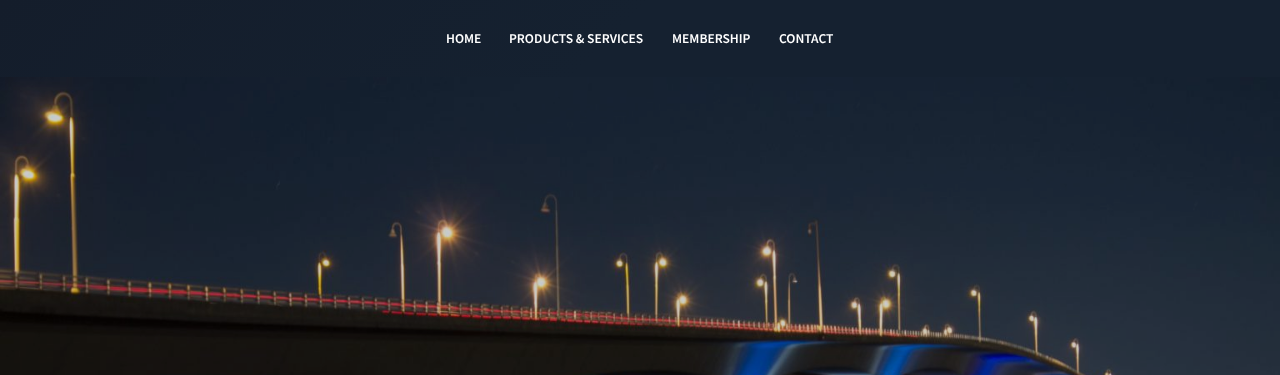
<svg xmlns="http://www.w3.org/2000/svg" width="1280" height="375">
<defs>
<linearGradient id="g1" gradientUnits="userSpaceOnUse" x1="301" y1="-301" x2="979" y2="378"><stop offset="0" stop-color="#141d2b"/><stop offset="0.48" stop-color="#152130"/></linearGradient>
</defs>
<rect width="100%" height="100%" fill="#fff"/>
<rect width="1280" height="77" fill="url(#g1)"/>
<text x="446" y="43" style="font-family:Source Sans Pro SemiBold;font-size:13.5px;font-weight:600;fill:#fff">HOME</text>
<text x="509" y="43" style="font-family:Source Sans Pro SemiBold;font-size:13.5px;font-weight:600;fill:#fff">PRODUCTS &amp; SERVICES</text>
<text x="672" y="43" style="font-family:Source Sans Pro SemiBold;font-size:13.5px;font-weight:600;fill:#fff">MEMBERSHIP</text>
<text x="779" y="43" style="font-family:Source Sans Pro SemiBold;font-size:13.5px;font-weight:600;fill:#fff">CONTACT</text>
<image x="0" y="77" width="1280" height="298" href="media/1.png"/>
</svg>
